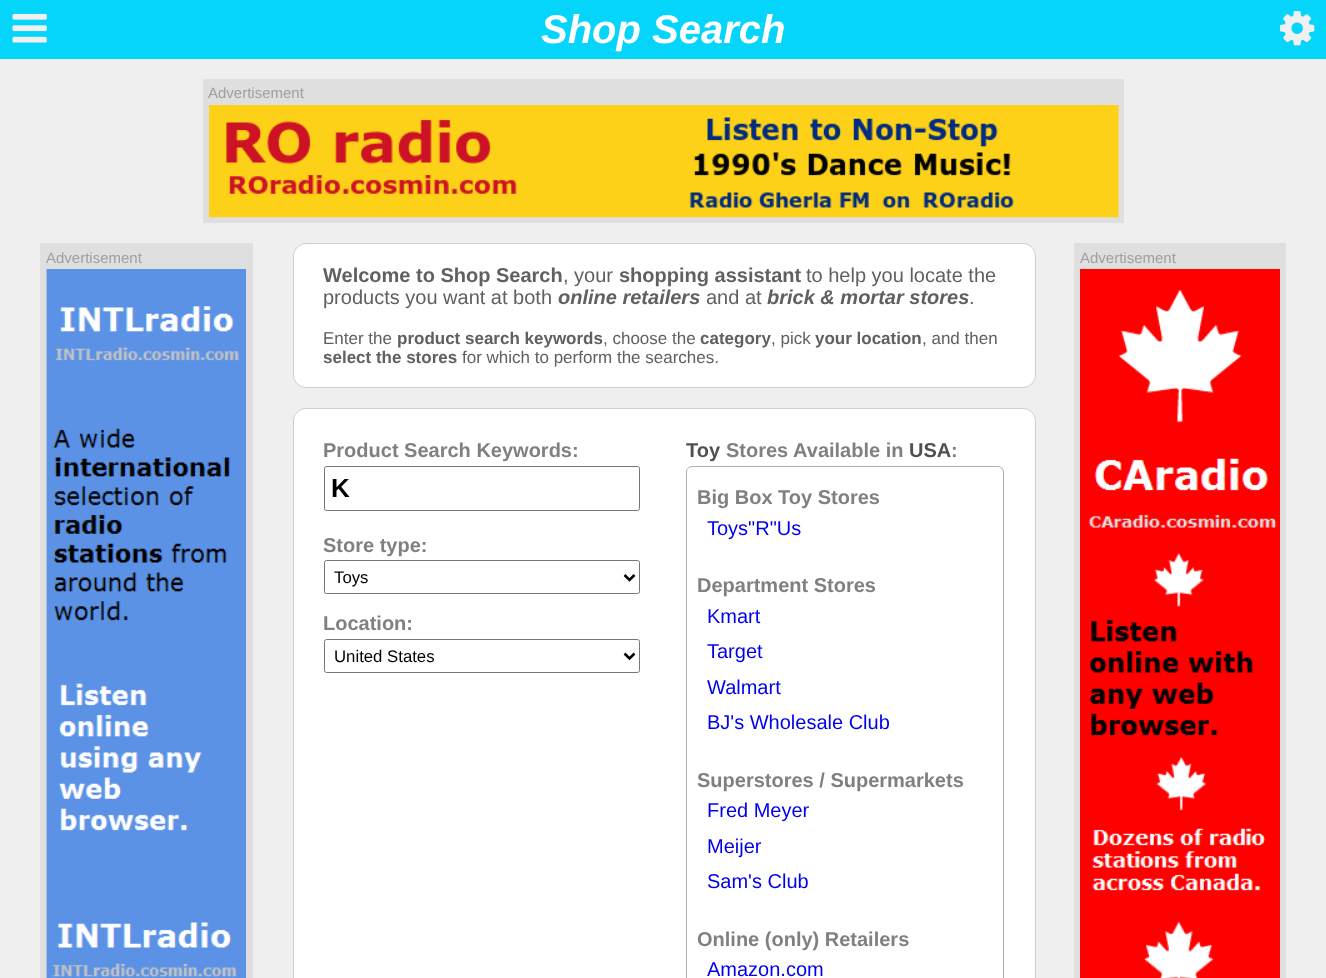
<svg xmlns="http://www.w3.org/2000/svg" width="1326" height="978">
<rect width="100%" height="100%" fill="#05d5fa"/>
<image x="12" y="13" width="35" height="30" href="media/1.png"/>
<text x="541" y="43" style="font-family:Liberation Sans;font-size:40px;font-weight:bold;font-style:italic;fill:#fff">Shop Search</text>
<image x="1280" y="11" width="35" height="35" href="media/2.png"/>
<rect y="59" width="1326" height="919" fill="#efefef"/>
<rect x="203" y="79" width="921" height="144" fill="#dfdfdf"/>
<text x="208" y="98" style="font-family:Liberation Sans;font-size:15px;fill:#9f9f9f">Advertisement</text>
<image x="209" y="105" width="910" height="113" href="media/3.png"/>
<rect x="40" y="243" width="213" height="735" fill="#dfdfdf"/>
<text x="46" y="263" style="font-family:Liberation Sans;font-size:15px;fill:#9f9f9f">Advertisement</text>
<image x="46" y="269" width="201" height="709" href="media/4.png"/>
<rect x="1074" y="243" width="212" height="735" fill="#dfdfdf"/>
<text x="1080" y="263" style="font-family:Liberation Sans;font-size:15px;fill:#9f9f9f">Advertisement</text>
<image x="1080" y="269" width="200" height="709" href="media/5.png"/>
<rect x="293.5" y="243.5" width="742" height="144" rx="12.5" fill="#fff" stroke="#cfcfcf"/>
<text x="323" y="282" style="font-family:Liberation Sans;font-size:20px;font-weight:bold;fill:#606060">Welcome to Shop Search</text>
<text x="563" y="282" style="font-family:Liberation Sans;font-size:20px;fill:#606060">, your</text>
<text x="619" y="282" style="font-family:Liberation Sans;font-size:20px;font-weight:bold;fill:#606060">shopping assistant</text>
<text x="806" y="282" style="font-family:Liberation Sans;font-size:20px;fill:#606060">to help you locate the</text>
<text x="323" y="304" style="font-family:Liberation Sans;font-size:20px;fill:#606060">products you want at both</text>
<text x="558" y="304" style="font-family:Liberation Sans;font-size:20px;font-weight:bold;font-style:italic;fill:#606060">online retailers</text>
<text x="706" y="304" style="font-family:Liberation Sans;font-size:20px;fill:#606060">and at</text>
<text x="767" y="304" style="font-family:Liberation Sans;font-size:20px;font-weight:bold;font-style:italic;fill:#606060">brick &amp; mortar stores</text>
<text x="969" y="304" style="font-family:Liberation Sans;font-size:20px;fill:#606060">.</text>
<text x="323" y="344" style="font-family:Liberation Sans;font-size:17px;fill:#606060">Enter the</text>
<text x="397" y="344" style="font-family:Liberation Sans;font-size:17px;font-weight:bold;fill:#606060">product search keywords</text>
<text x="603" y="344" style="font-family:Liberation Sans;font-size:17px;fill:#606060">, choose the</text>
<text x="700" y="344" style="font-family:Liberation Sans;font-size:17px;font-weight:bold;fill:#606060">category</text>
<text x="771" y="344" style="font-family:Liberation Sans;font-size:17px;fill:#606060">, pick</text>
<text x="815" y="344" style="font-family:Liberation Sans;font-size:17px;font-weight:bold;fill:#606060">your location</text>
<text x="922" y="344" style="font-family:Liberation Sans;font-size:17px;fill:#606060">, and then</text>
<text x="323" y="363" style="font-family:Liberation Sans;font-size:17px;font-weight:bold;fill:#606060">select the stores</text>
<text x="462" y="363" style="font-family:Liberation Sans;font-size:17px;fill:#606060">for which to perform the searches.</text>
<rect x="293.5" y="408.5" width="742" height="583" rx="12.5" fill="#fff" stroke="#cfcfcf"/>
<text x="323" y="457" style="font-family:Liberation Sans;font-size:20px;font-weight:bold;fill:#808080">Product Search Keywords:</text>
<rect x="324.5" y="466.5" width="315" height="44" rx="2" fill="none" stroke="#767676"/>
<text x="331" y="497" style="font-family:Liberation Sans;font-size:26px;font-weight:bold;fill:#000">K</text>
<text x="323" y="552" style="font-family:Liberation Sans;font-size:20px;font-weight:bold;fill:#808080">Store type:</text>
<rect x="324.5" y="560.5" width="315" height="33" rx="2" fill="none" stroke="#767676"/>
<path d="M624.5 575l5 5l5-5" fill="none" stroke="#000" stroke-width="2.5"/>
<text x="334" y="583" style="font-family:Liberation Sans;font-size:16.75px;fill:#000">Toys</text>
<text x="323" y="630" style="font-family:Liberation Sans;font-size:20px;font-weight:bold;fill:#808080">Location:</text>
<rect x="324.5" y="639.5" width="315" height="33" rx="2" fill="none" stroke="#767676"/>
<path d="M624.5 653.5l5 5l5-5" fill="none" stroke="#000" stroke-width="2.5"/>
<text x="334" y="662" style="font-family:Liberation Sans;font-size:16.75px;fill:#000">United States</text>
<text x="686" y="457" style="font-family:Liberation Sans;font-size:20px;font-weight:bold;fill:#505050">Toy</text>
<text x="726" y="457" style="font-family:Liberation Sans;font-size:20px;font-weight:bold;fill:#808080">Stores Available in</text>
<text x="909" y="457" style="font-family:Liberation Sans;font-size:20px;font-weight:bold;fill:#505050">USA</text>
<text x="951" y="457" style="font-family:Liberation Sans;font-size:20px;font-weight:bold;fill:#808080">:</text>
<rect x="686.5" y="466.5" width="317" height="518" rx="5.5" fill="none" stroke="#afafaf"/>
<text x="697" y="504" style="font-family:Liberation Sans;font-size:20px;font-weight:bold;fill:#808080">Big Box Toy Stores</text>
<text x="707" y="535" style="font-family:Liberation Sans;font-size:20px;fill:#00e">Toys"R"Us</text>
<text x="697" y="592" style="font-family:Liberation Sans;font-size:20px;font-weight:bold;fill:#808080">Department Stores</text>
<text x="707" y="623" style="font-family:Liberation Sans;font-size:20px;fill:#00e">Kmart</text>
<text x="707" y="658" style="font-family:Liberation Sans;font-size:20px;fill:#00e">Target</text>
<text x="707" y="694" style="font-family:Liberation Sans;font-size:20px;fill:#00e">Walmart</text>
<text x="707" y="729" style="font-family:Liberation Sans;font-size:20px;fill:#00e">BJ's Wholesale Club</text>
<text x="697" y="787" style="font-family:Liberation Sans;font-size:20px;font-weight:bold;fill:#808080">Superstores / Supermarkets</text>
<text x="707" y="817" style="font-family:Liberation Sans;font-size:20px;fill:#00e">Fred Meyer</text>
<text x="707" y="853" style="font-family:Liberation Sans;font-size:20px;fill:#00e">Meijer</text>
<text x="707" y="888" style="font-family:Liberation Sans;font-size:20px;fill:#00e">Sam's Club</text>
<text x="697" y="946" style="font-family:Liberation Sans;font-size:20px;font-weight:bold;fill:#808080">Online (only) Retailers</text>
<text x="707" y="976" style="font-family:Liberation Sans;font-size:20px;fill:#00e">Amazon.com</text>
</svg>
